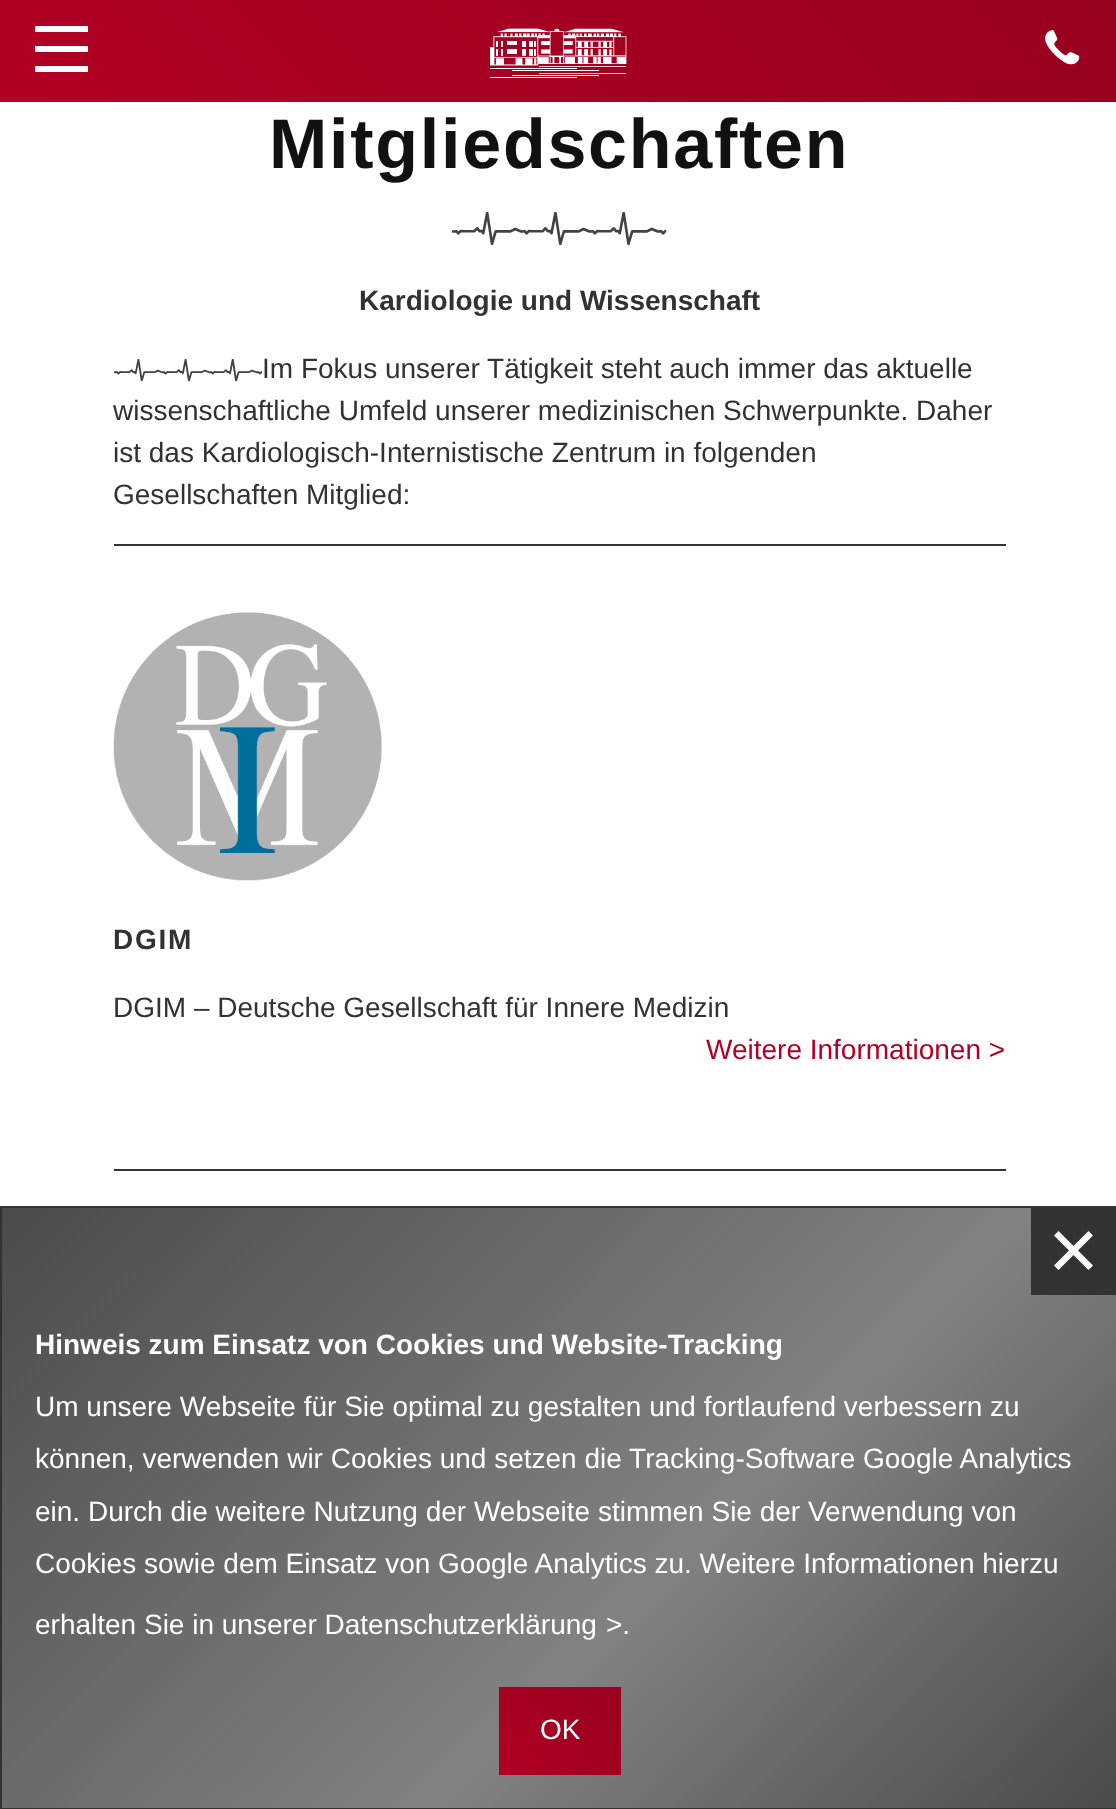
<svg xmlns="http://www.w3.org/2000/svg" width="1116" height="1809">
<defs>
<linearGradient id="g1" gradientUnits="userSpaceOnUse" x1="254" y1="355" x2="863" y2="-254"><stop offset="0" stop-color="#b10024"/><stop offset="1" stop-color="#98011f"/></linearGradient>
<linearGradient id="g2" gradientUnits="userSpaceOnUse" x1="131" y1="1078" x2="989" y2="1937"><stop offset="0" stop-color="#4b4b4b"/><stop offset="0.6" stop-color="#828282"/><stop offset="1" stop-color="#4b4b4b"/></linearGradient>
<linearGradient id="g3" gradientUnits="userSpaceOnUse" x1="508" y1="1783" x2="613" y2="1678"><stop offset="0" stop-color="#b10024"/><stop offset="1" stop-color="#98011f"/></linearGradient>
</defs>
<rect width="100%" height="100%" fill="#fff"/>
<rect width="1116" height="102" fill="url(#g1)"/>
<rect x="35" y="26" width="53" height="6" fill="#fff"/>
<rect x="35" y="46" width="53" height="6" fill="#fff"/>
<rect x="35" y="66" width="53" height="6" fill="#fff"/>
<image x="490" y="28" width="137" height="50" href="media/1.png"/>
<image x="1045" y="30" width="35" height="35" href="media/2.png"/>
<text x="269" y="168" style="font-family:Liberation Sans;font-size:70px;font-weight:bold;letter-spacing:1.75px;fill:#111">Mitgliedschaften</text>
<image x="452" y="212" width="215" height="33" href="media/3.png"/>
<text x="359" y="310" style="font-family:Liberation Sans;font-size:28px;font-weight:bold;fill:#323232">Kardiologie und Wissenschaft</text>
<image x="114" y="359" width="149" height="23" href="media/4.png"/>
<text x="262" y="378" style="font-family:Liberation Sans;font-size:28px;fill:#323232">Im Fokus unserer Tätigkeit steht auch immer das aktuelle</text>
<text x="113" y="420" style="font-family:Liberation Sans;font-size:28px;fill:#323232">wissenschaftliche Umfeld unserer medizinischen Schwerpunkte. Daher</text>
<text x="113" y="462" style="font-family:Liberation Sans;font-size:28px;fill:#323232">ist das Kardiologisch-Internistische Zentrum in folgenden</text>
<text x="113" y="504" style="font-family:Liberation Sans;font-size:28px;fill:#323232">Gesellschaften Mitglied:</text>
<rect x="114" y="544" width="892" height="2" fill="#323232"/>
<image x="113" y="612" width="269" height="269" href="media/5.png"/>
<text x="113" y="949" style="font-family:Liberation Sans;font-size:28px;font-weight:bold;letter-spacing:1.75px;fill:#323232">DGIM</text>
<text x="113" y="1017" style="font-family:Liberation Sans;font-size:28px;fill:#323232">DGIM – Deutsche Gesellschaft für Innere Medizin</text>
<text x="706" y="1059" style="font-family:Liberation Sans;font-size:28px;fill:#b10024">Weitere Informationen &gt;</text>
<rect x="114" y="1169" width="892" height="2" fill="#323232"/>
<rect x="2" y="1208" width="1114" height="600" fill="url(#g2)"/>
<rect x="1" y="1207" width="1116" height="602" fill="none" stroke="#323232" stroke-width="2"/>
<rect x="1031" y="1208" width="85" height="87" fill="#323232"/>
<path d="M1054 1265.5l34.5-34.5l4.5 4.5l-34.5 34.5z" fill="#fff"/>
<path d="M1054 1235.5l4.5-4.5l34.5 34.5l-4.5 4.5z" fill="#fff"/>
<text x="35" y="1354" style="font-family:Liberation Sans;font-size:28px;font-weight:bold;fill:#fff">Hinweis zum Einsatz von Cookies und Website-Tracking</text>
<text x="35" y="1416" style="font-family:Liberation Sans;font-size:28px;fill:#fff">Um unsere Webseite für Sie optimal zu gestalten und fortlaufend verbessern zu</text>
<text x="35" y="1468" style="font-family:Liberation Sans;font-size:28px;fill:#fff">können, verwenden wir Cookies und setzen die Tracking-Software Google Analytics</text>
<text x="35" y="1521" style="font-family:Liberation Sans;font-size:28px;fill:#fff">ein. Durch die weitere Nutzung der Webseite stimmen Sie der Verwendung von</text>
<text x="35" y="1573" style="font-family:Liberation Sans;font-size:28px;fill:#fff">Cookies sowie dem Einsatz von Google Analytics zu. Weitere Informationen hierzu</text>
<text x="35" y="1634" style="font-family:Liberation Sans;font-size:28px;fill:#fff">erhalten Sie in unserer Datenschutzerklärung</text>
<text x="606" y="1634" style="font-family:Liberation Sans;font-size:28px;fill:#fff">&gt;.</text>
<rect x="499" y="1687" width="122" height="88" fill="url(#g3)"/>
<text x="540" y="1739" style="font-family:Liberation Sans;font-size:28px;fill:#fff">OK</text>
</svg>
